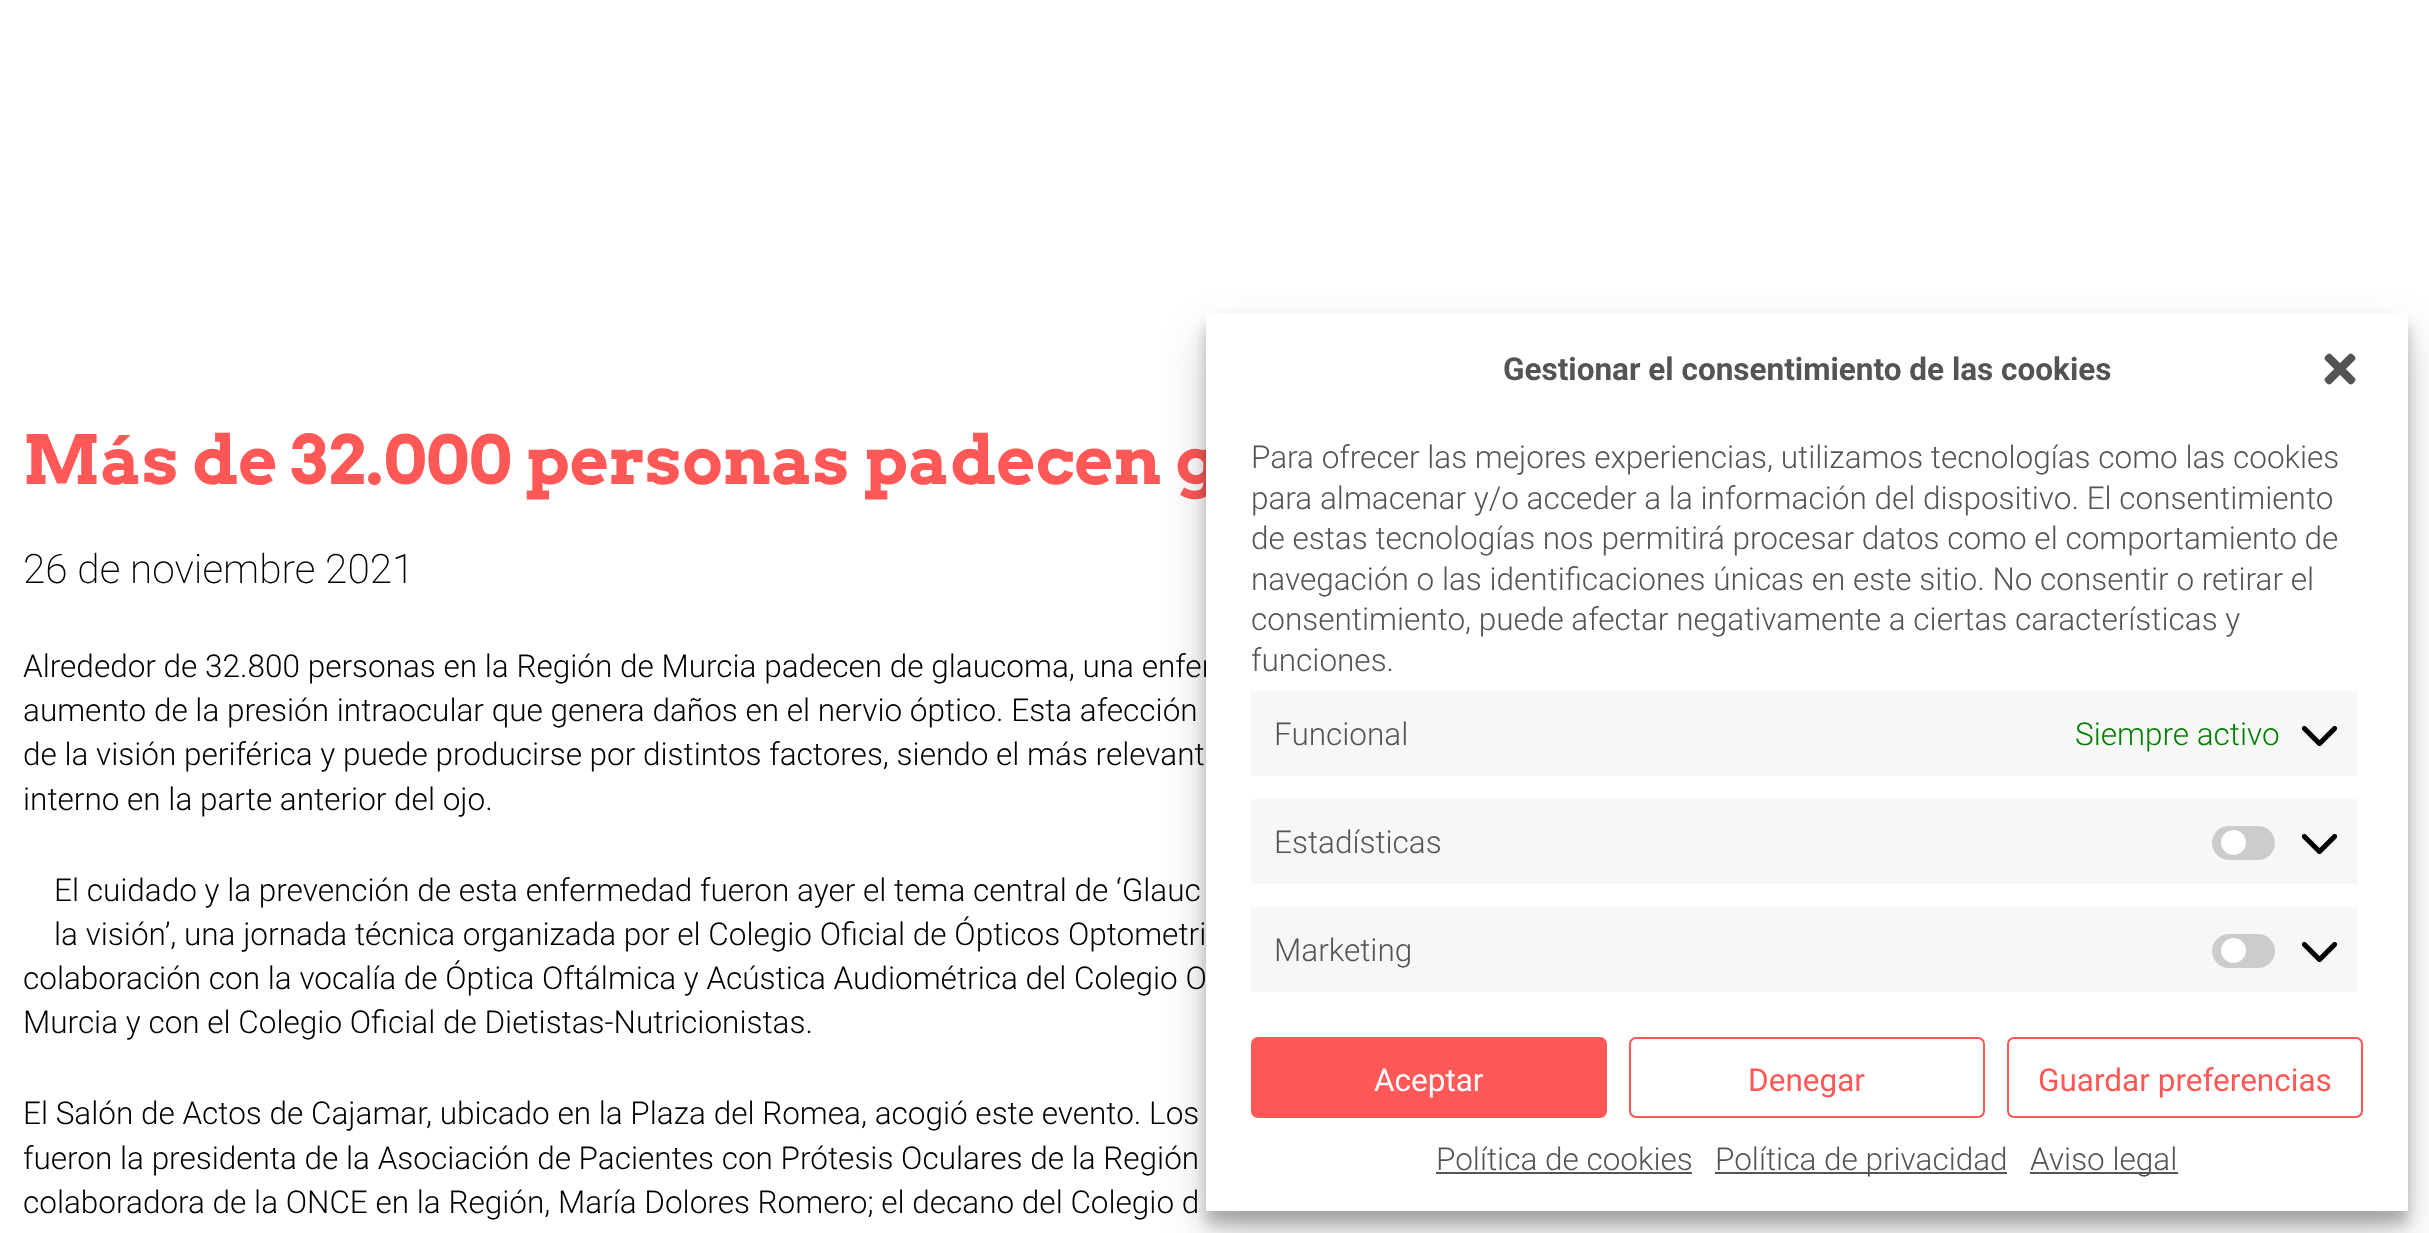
<svg xmlns="http://www.w3.org/2000/svg" width="2429" height="1233">
<rect width="100%" height="100%" fill="#fff"/>
<text x="23" y="484" style="font-family:Arvo;font-size:67.5px;font-weight:bold;fill:#ff5857">Más de 32.000 personas padecen g</text>
<text x="23" y="583" style="font-family:Roboto;font-size:40.5px;font-weight:200;fill:#000">26 de noviembre 2021</text>
<text x="23" y="677" style="font-family:Roboto;font-size:31.5px;font-weight:300;fill:#000">Alrededor de 32.800 personas en la Región de Murcia padecen de glaucoma, una enfer</text>
<text x="23" y="721" style="font-family:Roboto;font-size:31.5px;font-weight:300;fill:#000">aumento de la presión intraocular que genera daños en el nervio óptico. Esta afección</text>
<text x="23" y="765" style="font-family:Roboto;font-size:31.5px;font-weight:300;fill:#000">de la visión periférica y puede producirse por distintos factores, siendo el más relevant</text>
<text x="23" y="810" style="font-family:Roboto;font-size:31.5px;font-weight:300;fill:#000">interno en la parte anterior del ojo.</text>
<text x="54" y="901" style="font-family:Roboto;font-size:31.5px;font-weight:300;fill:#000">El cuidado y la prevención de esta enfermedad fueron ayer el tema central de ‘Glauc</text>
<text x="54" y="945" style="font-family:Roboto;font-size:31.5px;font-weight:300;fill:#000">la visión’, una jornada técnica organizada por el Colegio Oficial de Ópticos Optometri</text>
<text x="23" y="989" style="font-family:Roboto;font-size:31.5px;font-weight:300;fill:#000">colaboración con la vocalía de Óptica Oftálmica y Acústica Audiométrica del Colegio O</text>
<text x="23" y="1033" style="font-family:Roboto;font-size:31.5px;font-weight:300;fill:#000">Murcia y con el Colegio Oficial de Dietistas-Nutricionistas.</text>
<text x="23" y="1124" style="font-family:Roboto;font-size:31.5px;font-weight:300;fill:#000">El Salón de Actos de Cajamar, ubicado en la Plaza del Romea, acogió este evento. Los</text>
<text x="23" y="1169" style="font-family:Roboto;font-size:31.5px;font-weight:300;fill:#000">fueron la presidenta de la Asociación de Pacientes con Prótesis Oculares de la Región</text>
<text x="23" y="1213" style="font-family:Roboto;font-size:31.5px;font-weight:300;fill:#000">colaboradora de la ONCE en la Región, María Dolores Romero; el decano del Colegio d</text>
<rect x="1206" y="326" width="1202" height="898" fill="#0000003b" filter="blur(7px)"/>
<rect x="1206" y="335" width="1202" height="898" fill="#00000030" filter="blur(22.5px)"/>
<rect x="1206" y="313" width="1202" height="898" fill="#fff"/>
<text x="1503" y="380" style="font-family:Roboto;font-size:31.5px;font-weight:bold;fill:#545454">Gestionar el consentimiento de las cookies</text>
<image x="2324" y="353" width="32" height="32" href="media/1.png"/>
<text x="1251" y="468" style="font-family:Roboto;font-size:31.5px;font-weight:300;fill:#545454">Para ofrecer las mejores experiencias, utilizamos tecnologías como las cookies</text>
<text x="1251" y="509" style="font-family:Roboto;font-size:31.5px;font-weight:300;fill:#545454">para almacenar y/o acceder a la información del dispositivo. El consentimiento</text>
<text x="1251" y="549" style="font-family:Roboto;font-size:31.5px;font-weight:300;fill:#545454">de estas tecnologías nos permitirá procesar datos como el comportamiento de</text>
<text x="1251" y="590" style="font-family:Roboto;font-size:31.5px;font-weight:300;fill:#545454">navegación o las identificaciones únicas en este sitio. No consentir o retirar el</text>
<text x="1251" y="630" style="font-family:Roboto;font-size:31.5px;font-weight:300;fill:#545454">consentimiento, puede afectar negativamente a ciertas características y</text>
<text x="1251" y="671" style="font-family:Roboto;font-size:31.5px;font-weight:300;fill:#545454">funciones.</text>
<rect x="1251" y="691" width="1107" height="85" fill="#f7f7f7"/>
<text x="1274" y="745" style="font-family:Roboto;font-size:31.5px;font-weight:300;fill:#545454">Funcional</text>
<text x="2075" y="745" style="font-family:Roboto;font-size:31.5px;font-weight:300;fill:#008000">Siempre activo</text>
<image x="2302" y="725" width="36" height="22" href="media/2.png"/>
<rect x="1251" y="799" width="1107" height="85" fill="#f7f7f7"/>
<text x="1274" y="853" style="font-family:Roboto;font-size:31.5px;font-weight:300;fill:#545454">Estadísticas</text>
<rect x="2212" y="826" width="63" height="34" rx="17" fill="#ccc"/>
<circle cx="2233.5" cy="842.5" r="12.5" fill="#fff"/>
<image x="2302" y="833" width="36" height="22" href="media/2.png"/>
<rect x="1251" y="907" width="1107" height="85" fill="#f7f7f7"/>
<text x="1274" y="961" style="font-family:Roboto;font-size:31.5px;font-weight:300;fill:#545454">Marketing</text>
<rect x="2212" y="934" width="63" height="34" rx="17" fill="#ccc"/>
<circle cx="2233.5" cy="950.5" r="12.5" fill="#fff"/>
<image x="2302" y="941" width="36" height="22" href="media/2.png"/>
<rect x="1252" y="1038" width="354" height="79" rx="6" fill="#ff5857" stroke="#ff5857" stroke-width="2"/>
<text x="1374" y="1091" style="font-family:Roboto;font-size:31.5px;fill:#fff">Aceptar</text>
<rect x="1630" y="1038" width="354" height="79" rx="6" fill="none" stroke="#ff5857" stroke-width="2"/>
<text x="1748" y="1091" style="font-family:Roboto;font-size:31.5px;fill:#ff5857">Denegar</text>
<rect x="2008" y="1038" width="354" height="79" rx="6" fill="none" stroke="#ff5857" stroke-width="2"/>
<text x="2038" y="1091" style="font-family:Roboto;font-size:31.5px;fill:#ff5857">Guardar preferencias</text>
<text x="1436" y="1170" style="font-family:Roboto;font-size:31.5px;font-weight:300;fill:#545454">Política de cookies</text>
<rect x="1436" y="1172" width="256" height="2" fill="#545454"/>
<rect x="1715" y="1172" width="292" height="2" fill="#545454"/>
<text x="1715" y="1170" style="font-family:Roboto;font-size:31.5px;font-weight:300;fill:#545454">Política de privacidad</text>
<rect x="2030" y="1172" width="148" height="2" fill="#545454"/>
<text x="2030" y="1170" style="font-family:Roboto;font-size:31.5px;font-weight:300;fill:#545454">Aviso legal</text>
</svg>
